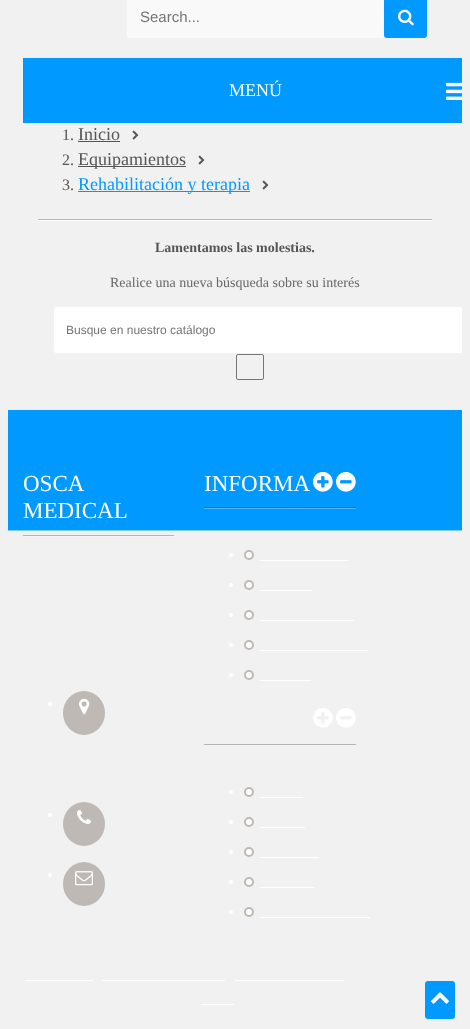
<svg xmlns="http://www.w3.org/2000/svg" width="470" height="1029">
<defs>
<clipPath id="clip1"><rect x="127" width="300" height="38"/></clipPath>
<clipPath id="clip2"><rect x="8" width="454" height="1021"/></clipPath>
</defs>
<rect width="100%" height="100%" fill="#f1f1f1"/>
<rect x="127" y="-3" width="279" height="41" rx="3" fill="#f9f9f9"/>
<text x="140" y="22" style="font-family:Liberation Sans;font-size:15px;fill:#757575">Search...</text>
<g clip-path="url(#clip1)">
<path d="M385 38c1 0 2 1 3 1h37c2 0 3-1 3-3v-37c0-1-1-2-1-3v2v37c0 2-1 3-3 3h-37z" fill="#f9f9f9"/>
</g>
<rect x="384" y="-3" width="43" height="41" rx="3" fill="#09f"/>
<image x="398" y="9" width="16" height="17" href="media/1.png"/>
<rect x="23" y="58" width="439" height="65" fill="#09f"/>
<text x="229" y="96" style="font-family:Liberation Serif;font-size:18px;fill:#fff">MENÚ</text>
<image x="446" y="82" width="16" height="18" href="media/2.png"/>
<rect x="38" y="220" width="394" height="1" fill="#fefefe"/>
<rect x="38" y="219" width="394" height="1" fill="#b5b5b5"/>
<text x="62" y="140" style="font-family:Liberation Serif;font-size:16px;fill:#555">1.</text>
<text x="78" y="140" style="font-family:Liberation Serif;font-size:18px;fill:#555">Inicio</text>
<rect x="78" y="141" width="42" height="1" fill="#555"/>
<image x="132" y="130" width="7" height="10" href="media/3.png"/>
<text x="62" y="165" style="font-family:Liberation Serif;font-size:16px;fill:#555">2.</text>
<rect x="78" y="166" width="108" height="1" fill="#555"/>
<text x="78" y="165" style="font-family:Liberation Serif;font-size:18px;fill:#555">Equipamientos</text>
<image x="198" y="155" width="7" height="10" href="media/3.png"/>
<text x="62" y="190" style="font-family:Liberation Serif;font-size:16px;fill:#555">3.</text>
<rect x="78" y="191" width="172" height="1" fill="#09f"/>
<text x="78" y="190" style="font-family:Liberation Serif;font-size:18px;fill:#09f">Rehabilitación y terapia</text>
<image x="262" y="180" width="7" height="10" href="media/3.png"/>
<text x="155" y="252" style="font-family:Liberation Serif;font-size:14px;font-weight:bold;fill:#555">Lamentamos las molestias.</text>
<text x="110" y="287" style="font-family:Liberation Serif;font-size:14px;fill:#666">Realice una nueva búsqueda sobre su interés</text>
<path d="M57 306h405v48h-405c-2 0-4-2-4-4v-40c0-2 2-4 4-4z" fill="#fff"/>
<g clip-path="url(#clip2)">
<rect x="53.5" y="306.5" width="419" height="47" rx="3.5" fill="none" stroke="#f2f2f2"/>
</g>
<text x="66" y="334" style="font-family:Liberation Sans;font-size:12px;fill:#757575">Busque en nuestro catálogo</text>
<rect x="236.5" y="354.5" width="27" height="25" rx="1.5" fill="none" stroke="#767676"/>
<rect x="8" y="410" width="454" height="120" fill="#09f"/>
<rect x="23" y="536" width="151" height="1" fill="#f5f5f5"/>
<rect x="23" y="535" width="151" height="1" fill="#b5b5b5"/>
<text x="23" y="491" style="font-family:Liberation Serif;font-size:23px;fill:#fff">OSCA</text>
<text x="23" y="518" style="font-family:Liberation Serif;font-size:23px;fill:#fff">MEDICAL</text>
<circle cx="50" cy="704" r="2" fill="#fff"/>
<ellipse cx="84" cy="713" rx="21" ry="22" fill="#beb9b4"/>
<image x="79" y="698" width="11" height="17" href="media/4.png"/>
<circle cx="50" cy="815" r="2" fill="#fff"/>
<ellipse cx="84" cy="824" rx="21" ry="22" fill="#beb9b4"/>
<image x="77" y="810" width="14" height="14" href="media/5.png"/>
<circle cx="50" cy="875" r="2" fill="#fff"/>
<ellipse cx="84" cy="884" rx="21" ry="22" fill="#beb9b4"/>
<image x="75" y="871" width="18" height="15" href="media/6.png"/>
<rect x="204" y="508" width="152" height="1" fill="#4db8ff"/>
<rect x="204" y="507" width="152" height="1" fill="#0073bf"/>
<text x="204" y="491" style="font-family:Liberation Serif;font-size:23px;fill:#fff">INFORMA</text>
<image x="313" y="471" width="20" height="21" href="media/7.png"/>
<image x="336" y="471" width="20" height="21" href="media/8.png"/>
<circle cx="249" cy="555" r="5" fill="#beb9b4"/>
<circle cx="231" cy="555" r="2" fill="#fff"/>
<circle cx="249" cy="555" r="3" fill="#fff"/>
<rect x="260" y="560" width="88" height="1" fill="#fff"/>
<circle cx="249" cy="585" r="5" fill="#beb9b4"/>
<circle cx="231" cy="585" r="2" fill="#fff"/>
<circle cx="249" cy="585" r="3" fill="#fff"/>
<rect x="260" y="590" width="52" height="1" fill="#fff"/>
<circle cx="249" cy="615" r="5" fill="#beb9b4"/>
<circle cx="231" cy="615" r="2" fill="#fff"/>
<circle cx="249" cy="615" r="3" fill="#fff"/>
<rect x="260" y="620" width="94" height="1" fill="#fff"/>
<circle cx="249" cy="645" r="5" fill="#beb9b4"/>
<circle cx="231" cy="645" r="2" fill="#fff"/>
<circle cx="249" cy="645" r="3" fill="#fff"/>
<rect x="260" y="650" width="108" height="1" fill="#fff"/>
<circle cx="249" cy="675" r="5" fill="#beb9b4"/>
<circle cx="231" cy="675" r="2" fill="#fff"/>
<circle cx="249" cy="675" r="3" fill="#fff"/>
<rect x="260" y="680" width="51" height="1" fill="#fff"/>
<image x="313" y="708" width="20" height="20" href="media/9.png"/>
<image x="336" y="708" width="20" height="20" href="media/10.png"/>
<rect x="204" y="745" width="152" height="1" fill="#f5f5f5"/>
<rect x="204" y="744" width="152" height="1" fill="#b5b5b5"/>
<circle cx="249" cy="792" r="5" fill="#beb9b4"/>
<circle cx="231" cy="792" r="2" fill="#fff"/>
<circle cx="249" cy="792" r="3" fill="#fff"/>
<rect x="260" y="797" width="43" height="1" fill="#fff"/>
<circle cx="249" cy="822" r="5" fill="#beb9b4"/>
<circle cx="231" cy="822" r="2" fill="#fff"/>
<circle cx="249" cy="822" r="3" fill="#fff"/>
<rect x="260" y="827" width="45" height="1" fill="#fff"/>
<circle cx="249" cy="852" r="5" fill="#beb9b4"/>
<circle cx="231" cy="852" r="2" fill="#fff"/>
<circle cx="249" cy="852" r="3" fill="#fff"/>
<rect x="260" y="857" width="59" height="1" fill="#fff"/>
<circle cx="249" cy="882" r="5" fill="#beb9b4"/>
<circle cx="231" cy="882" r="2" fill="#fff"/>
<circle cx="249" cy="882" r="3" fill="#fff"/>
<rect x="260" y="887" width="54" height="1" fill="#fff"/>
<circle cx="249" cy="912" r="5" fill="#beb9b4"/>
<circle cx="231" cy="912" r="2" fill="#fff"/>
<circle cx="249" cy="912" r="3" fill="#fff"/>
<rect x="260" y="917" width="110" height="1" fill="#fff"/>
<rect x="8" y="530" width="454" height="1" fill="#80ccff"/>
<rect x="25" y="980" width="68" height="1" fill="#fff"/>
<rect x="102" y="980" width="123" height="1" fill="#fff"/>
<rect x="235" y="980" width="109" height="1" fill="#fff"/>
<rect x="201" y="1004" width="33" height="1" fill="#fff"/>
<rect x="425" y="981" width="30" height="38" rx="3" fill="#09f"/>
<image x="431" y="992" width="18" height="12" href="media/11.png"/>
</svg>
